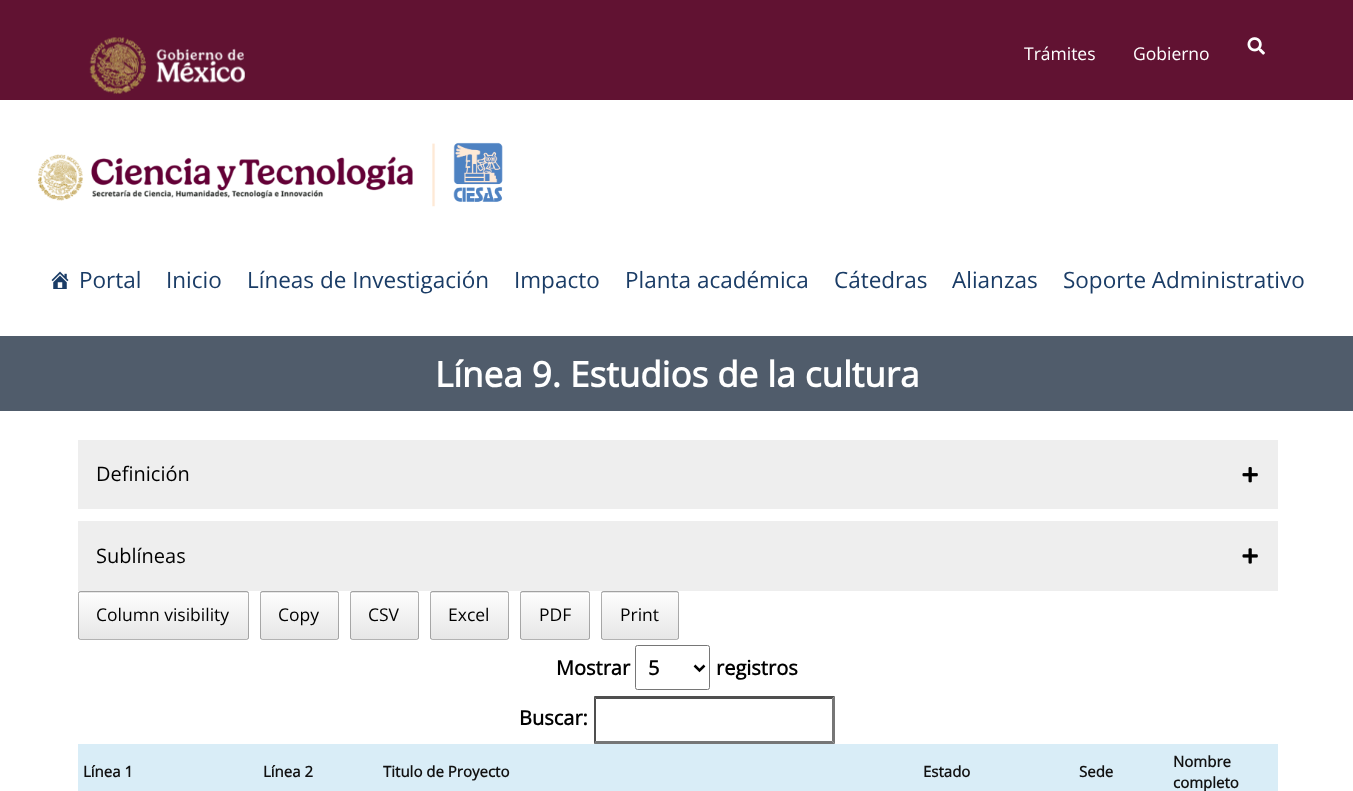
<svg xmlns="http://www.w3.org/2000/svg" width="1353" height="791">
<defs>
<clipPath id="clip1"><rect x="78" y="591" width="171" height="49" rx="2.5"/></clipPath>
<linearGradient id="g1" gradientUnits="userSpaceOnUse" x1="163" y1="546" x2="163" y2="593"><stop offset="0" stop-color="#fdfdfd"/><stop offset="1" stop-color="#e6e6e6"/></linearGradient>
<linearGradient id="g2" gradientUnits="userSpaceOnUse" x1="163" y1="593" x2="163" y2="639"><stop offset="0" stop-color="#fdfdfd"/><stop offset="1" stop-color="#e6e6e6"/></linearGradient>
<clipPath id="clip2"><rect x="260" y="591" width="79" height="49" rx="2.5"/></clipPath>
<linearGradient id="g3" gradientUnits="userSpaceOnUse" x1="299" y1="546" x2="299" y2="593"><stop offset="0" stop-color="#fdfdfd"/><stop offset="1" stop-color="#e6e6e6"/></linearGradient>
<linearGradient id="g4" gradientUnits="userSpaceOnUse" x1="299" y1="593" x2="299" y2="639"><stop offset="0" stop-color="#fdfdfd"/><stop offset="1" stop-color="#e6e6e6"/></linearGradient>
<clipPath id="clip3"><rect x="350" y="591" width="69" height="49" rx="2.5"/></clipPath>
<linearGradient id="g5" gradientUnits="userSpaceOnUse" x1="384" y1="546" x2="384" y2="593"><stop offset="0" stop-color="#fdfdfd"/><stop offset="1" stop-color="#e6e6e6"/></linearGradient>
<linearGradient id="g6" gradientUnits="userSpaceOnUse" x1="384" y1="593" x2="384" y2="639"><stop offset="0" stop-color="#fdfdfd"/><stop offset="1" stop-color="#e6e6e6"/></linearGradient>
<clipPath id="clip4"><rect x="430" y="591" width="79" height="49" rx="2.5"/></clipPath>
<linearGradient id="g7" gradientUnits="userSpaceOnUse" x1="469" y1="546" x2="469" y2="593"><stop offset="0" stop-color="#fdfdfd"/><stop offset="1" stop-color="#e6e6e6"/></linearGradient>
<linearGradient id="g8" gradientUnits="userSpaceOnUse" x1="469" y1="593" x2="469" y2="639"><stop offset="0" stop-color="#fdfdfd"/><stop offset="1" stop-color="#e6e6e6"/></linearGradient>
<clipPath id="clip5"><rect x="520" y="591" width="70" height="49" rx="2.5"/></clipPath>
<linearGradient id="g9" gradientUnits="userSpaceOnUse" x1="555" y1="546" x2="555" y2="593"><stop offset="0" stop-color="#fdfdfd"/><stop offset="1" stop-color="#e6e6e6"/></linearGradient>
<linearGradient id="g10" gradientUnits="userSpaceOnUse" x1="555" y1="593" x2="555" y2="639"><stop offset="0" stop-color="#fdfdfd"/><stop offset="1" stop-color="#e6e6e6"/></linearGradient>
<clipPath id="clip6"><rect x="601" y="591" width="78" height="49" rx="2.5"/></clipPath>
<linearGradient id="g11" gradientUnits="userSpaceOnUse" x1="640" y1="546" x2="640" y2="593"><stop offset="0" stop-color="#fdfdfd"/><stop offset="1" stop-color="#e6e6e6"/></linearGradient>
<linearGradient id="g12" gradientUnits="userSpaceOnUse" x1="640" y1="593" x2="640" y2="639"><stop offset="0" stop-color="#fdfdfd"/><stop offset="1" stop-color="#e6e6e6"/></linearGradient>
</defs>
<rect width="100%" height="100%" fill="#fff"/>
<rect width="1353" height="100" fill="#611232"/>
<image x="89" y="37" width="156" height="57" href="media/1.png"/>
<text x="1024" y="60" style="font-family:Open Sans;font-size:17.5px;fill:#fff">Trámites</text>
<text x="1133" y="60" style="font-family:Open Sans;font-size:17.5px;fill:#fff">Gobierno</text>
<image x="1247" y="37" width="18" height="18" href="media/2.png"/>
<image x="38" y="142" width="465" height="65" href="media/3.png"/>
<image x="51" y="271" width="18" height="18" href="media/4.png"/>
<text x="79" y="288" style="font-family:Open Sans;font-size:22.5px;fill:#1a3c66">Portal</text>
<text x="166" y="288" style="font-family:Open Sans;font-size:22.5px;fill:#1a3c66">Inicio</text>
<text x="247" y="288" style="font-family:Open Sans;font-size:22.5px;fill:#1a3c66">Líneas de Investigación</text>
<text x="514" y="288" style="font-family:Open Sans;font-size:22.5px;fill:#1a3c66">Impacto</text>
<text x="625" y="288" style="font-family:Open Sans;font-size:22.5px;fill:#1a3c66">Planta académica</text>
<text x="834" y="288" style="font-family:Open Sans;font-size:22.5px;fill:#1a3c66">Cátedras</text>
<text x="952" y="288" style="font-family:Open Sans;font-size:22.5px;fill:#1a3c66">Alianzas</text>
<text x="1063" y="288" style="font-family:Open Sans;font-size:22.5px;fill:#1a3c66">Soporte Administrativo</text>
<rect y="336" width="1353" height="75" fill="#505c6b"/>
<text x="435" y="387" style="font-family:Open Sans;font-size:35px;font-weight:bold;fill:#fff">Línea 9. Estudios de la cultura</text>
<rect x="78" y="440" width="1200" height="69" fill="#eee"/>
<text x="96" y="481" style="font-family:Open Sans;font-size:20px;fill:#000">Definición</text>
<image x="1242" y="467" width="16" height="16" href="media/5.png"/>
<rect x="78" y="521" width="1200" height="70" fill="#eee"/>
<text x="96" y="563" style="font-family:Open Sans;font-size:20px;fill:#000">Sublíneas</text>
<image x="1242" y="548" width="16" height="16" href="media/6.png"/>
<g clip-path="url(#clip1)">
<rect x="78" y="591" width="171" height="2" fill="url(#g1)"/>
</g>
<rect x="78" y="594" width="171" height="45" fill="url(#g2)"/>
<rect x="78.5" y="591.5" width="170" height="48" rx="2" fill="none" stroke="#0000004d"/>
<text x="96" y="621" style="font-family:Open Sans;font-size:17.5px;fill:#000">Column visibility</text>
<g clip-path="url(#clip2)">
<rect x="260" y="591" width="79" height="2" fill="url(#g3)"/>
</g>
<rect x="260" y="594" width="79" height="45" fill="url(#g4)"/>
<rect x="260.5" y="591.5" width="78" height="48" rx="2" fill="none" stroke="#0000004d"/>
<text x="278" y="621" style="font-family:Open Sans;font-size:17.5px;fill:#000">Copy</text>
<g clip-path="url(#clip3)">
<rect x="350" y="591" width="69" height="2" fill="url(#g5)"/>
</g>
<rect x="350" y="594" width="69" height="45" fill="url(#g6)"/>
<rect x="350.5" y="591.5" width="68" height="48" rx="2" fill="none" stroke="#0000004d"/>
<text x="368" y="621" style="font-family:Open Sans;font-size:17.5px;fill:#000">CSV</text>
<g clip-path="url(#clip4)">
<rect x="430" y="591" width="79" height="2" fill="url(#g7)"/>
</g>
<rect x="430" y="594" width="79" height="45" fill="url(#g8)"/>
<rect x="430.5" y="591.5" width="78" height="48" rx="2" fill="none" stroke="#0000004d"/>
<text x="448" y="621" style="font-family:Open Sans;font-size:17.5px;fill:#000">Excel</text>
<g clip-path="url(#clip5)">
<rect x="520" y="591" width="70" height="2" fill="url(#g9)"/>
</g>
<rect x="520" y="594" width="70" height="45" fill="url(#g10)"/>
<rect x="520.5" y="591.5" width="69" height="48" rx="2" fill="none" stroke="#0000004d"/>
<text x="539" y="621" style="font-family:Open Sans;font-size:17.5px;fill:#000">PDF</text>
<g clip-path="url(#clip6)">
<rect x="601" y="591" width="78" height="2" fill="url(#g11)"/>
</g>
<rect x="601" y="594" width="78" height="45" fill="url(#g12)"/>
<rect x="601.5" y="591.5" width="77" height="48" rx="2" fill="none" stroke="#0000004d"/>
<text x="620" y="621" style="font-family:Open Sans;font-size:17.5px;fill:#000">Print</text>
<text x="556" y="675" style="font-family:Open Sans;font-size:20px;font-weight:bold;fill:#000">Mostrar</text>
<rect x="635.5" y="645.5" width="74" height="44" rx="2" fill="none" stroke="#767676"/>
<path d="M694.5 665.5l5 5l5-5" fill="none" stroke="#000" stroke-width="2.5"/>
<text x="648" y="675" style="font-family:Open Sans;font-size:20px;font-weight:bold;fill:#000">5</text>
<text x="716" y="675" style="font-family:Open Sans;font-size:20px;font-weight:bold;fill:#000">registros</text>
<text x="519" y="725" style="font-family:Open Sans;font-size:20px;font-weight:bold;fill:#000">Buscar:</text>
<path d="M594 696h241l-3 3h-236z" fill="#4f4f4f"/>
<path d="M835 696v48l-3-3v-42z" fill="#767676"/>
<path d="M835 744h-241l2-3h236z" fill="#767676"/>
<path d="M594 744v-48l2 3v42z" fill="#4f4f4f"/>
<rect x="78" y="744" width="1200" height="47" fill="#d9edf7"/>
<text x="83" y="777" style="font-family:Open Sans;font-size:15px;font-weight:bold;fill:#111">Línea 1</text>
<text x="263" y="777" style="font-family:Open Sans;font-size:15px;font-weight:bold;fill:#111">Línea 2</text>
<text x="383" y="777" style="font-family:Open Sans;font-size:15px;font-weight:bold;fill:#111">Titulo de Proyecto</text>
<text x="923" y="777" style="font-family:Open Sans;font-size:15px;font-weight:bold;fill:#111">Estado</text>
<text x="1079" y="777" style="font-family:Open Sans;font-size:15px;font-weight:bold;fill:#111">Sede</text>
<text x="1173" y="767" style="font-family:Open Sans;font-size:15px;font-weight:bold;fill:#111">Nombre</text>
<text x="1173" y="788" style="font-family:Open Sans;font-size:15px;font-weight:bold;fill:#111">completo</text>
</svg>
